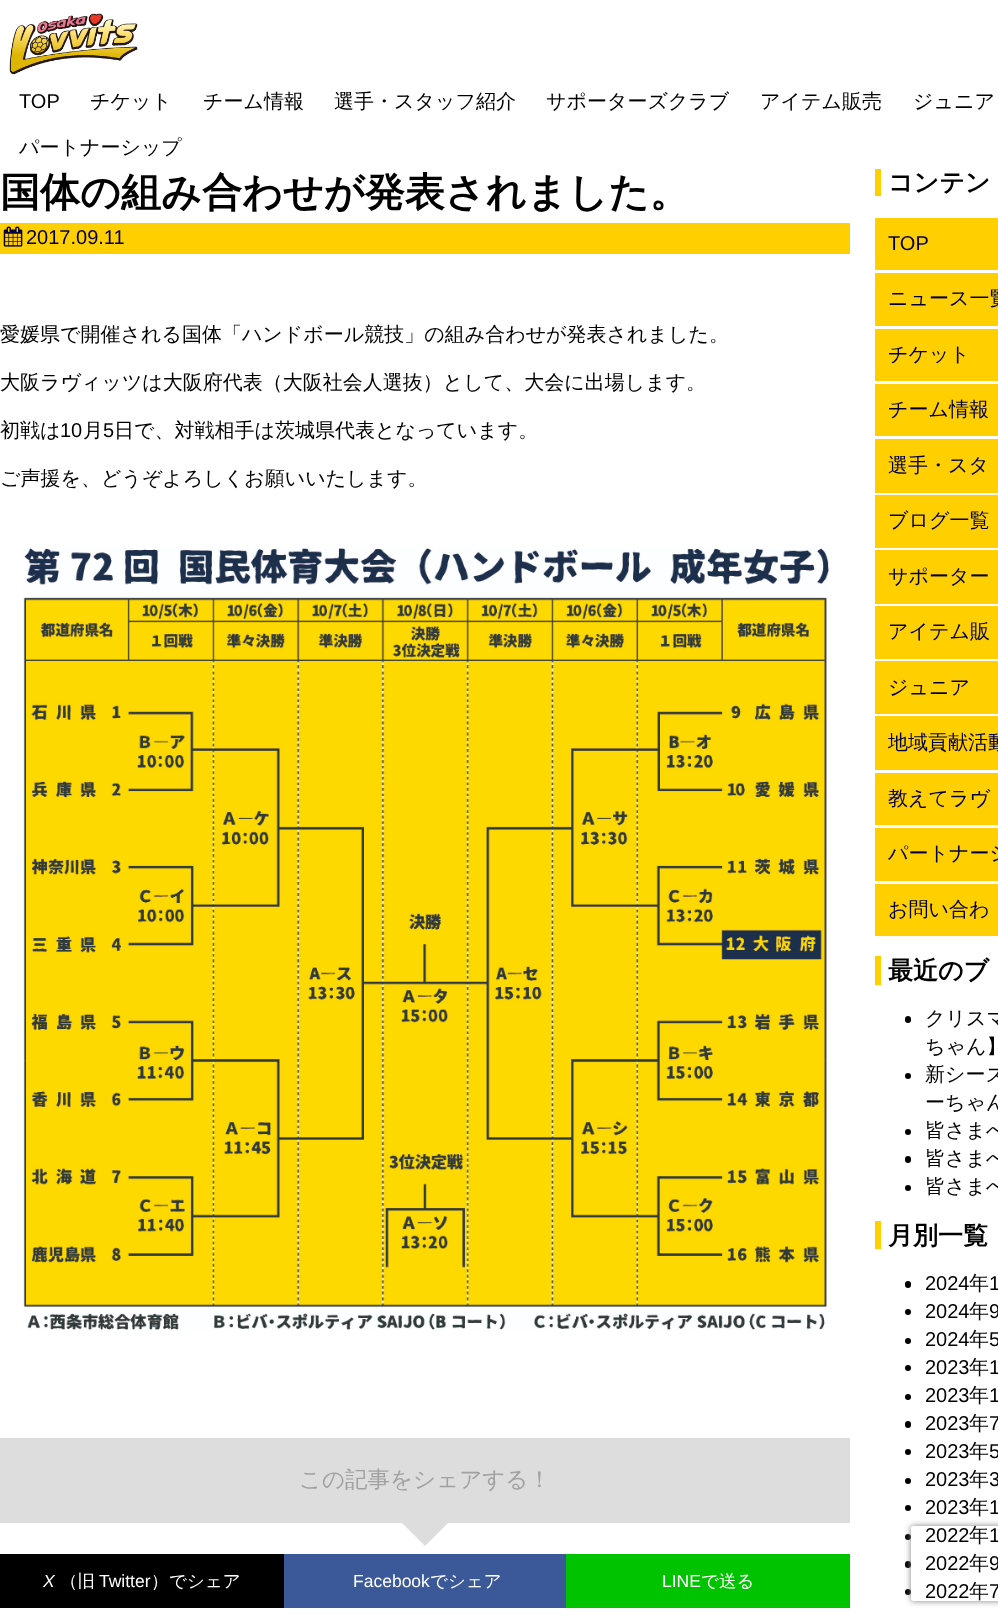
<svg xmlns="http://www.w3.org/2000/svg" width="998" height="1618">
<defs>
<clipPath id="clip1"><path d="M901 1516h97v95h-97zm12.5 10h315c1.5 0 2.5 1 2.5 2.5v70c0 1.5-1 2.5-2.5 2.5h-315c-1.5 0-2.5-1-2.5-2.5v-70c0-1.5 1-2.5 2.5-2.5z" clip-rule="evenodd"/></clipPath>
</defs>
<rect width="100%" height="100%" fill="#fff"/>
<image x="9" y="13" width="129" height="62" href="media/1.png"/>
<text x="19" y="108" style="font-family:Liberation Sans;font-size:20px;fill:#000">TOP</text>
<text x="90" y="108" style="font-family:WenQuanYi Zen Hei;font-size:20px;font-weight:500;fill:#000">チケット</text>
<text x="203" y="108" style="font-family:WenQuanYi Zen Hei;font-size:20px;font-weight:500;fill:#000">チーム情報</text>
<text x="334" y="108" style="font-family:WenQuanYi Zen Hei;font-size:20px;font-weight:500;fill:#000">選手・スタッフ紹介</text>
<text x="546" y="108" style="font-family:WenQuanYi Zen Hei;font-size:20px;font-weight:500;fill:#000">サポーターズクラブ</text>
<text x="760" y="108" style="font-family:WenQuanYi Zen Hei;font-size:20px;font-weight:500;fill:#000">アイテム販売</text>
<text x="913" y="108" style="font-family:WenQuanYi Zen Hei;font-size:20px;font-weight:500;fill:#000">ジュニア</text>
<text x="19" y="154" style="font-family:WenQuanYi Zen Hei;font-size:20px;font-weight:500;fill:#000">パートナーシップ</text>
<text x="0" y="206" style="font-family:WenQuanYi Zen Hei;font-size:40px;font-weight:bold;fill:#000">国体の組み合わせが発表されました。</text>
<rect y="223" width="850" height="31" fill="#ffcf00"/>
<image x="3" y="226" width="20" height="21" href="media/2.png"/>
<text x="26" y="244" style="font-family:Liberation Sans;font-size:20px;fill:#00003e">2017.09.11</text>
<text x="0" y="341" style="font-family:WenQuanYi Zen Hei;font-size:20px;font-weight:500;fill:#000">愛媛県で開催される国体「ハンドボール競技」の組み合わせが発表されました。</text>
<text x="0" y="389" style="font-family:WenQuanYi Zen Hei;font-size:20px;font-weight:500;fill:#000">大阪ラヴィッツは大阪府代表（大阪社会人選抜）として、大会に出場します。</text>
<text x="0" y="437" style="font-family:WenQuanYi Zen Hei;font-size:20px;font-weight:500;fill:#000">初戦は</text>
<text x="60" y="437" style="font-family:Liberation Sans;font-size:20px;fill:#000">10</text>
<text x="83" y="437" style="font-family:WenQuanYi Zen Hei;font-size:20px;font-weight:500;fill:#000">月</text>
<text x="103" y="437" style="font-family:Liberation Sans;font-size:20px;fill:#000">5</text>
<text x="114" y="437" style="font-family:WenQuanYi Zen Hei;font-size:20px;font-weight:500;fill:#000">日で、対戦相手は茨城県代表となっています。</text>
<text x="0" y="485" style="font-family:WenQuanYi Zen Hei;font-size:20px;font-weight:500;fill:#000">ご声援を、どうぞよろしくお願いいたします。</text>
<image x="23" y="548" width="806" height="782" href="media/3.png"/>
<rect y="1438" width="850" height="85" fill="#ddd"/>
<text x="299" y="1487" style="font-family:WenQuanYi Zen Hei;font-size:22.5px;font-weight:500;fill:#a1a1a1">この記事をシェアする！</text>
<path d="M401 1522h48l-24 24z" fill="#ddd"/>
<rect y="1554" width="284" height="54" fill="#000"/>
<text x="43" y="1587" style="font-family:Liberation Sans;font-size:17.5px;font-style:italic;fill:#fff">X</text>
<text x="60" y="1587" style="font-family:WenQuanYi Zen Hei;font-size:17.5px;font-weight:500;fill:#fff">（旧</text>
<text x="99" y="1587" style="font-family:Liberation Sans;font-size:17.5px;fill:#fff">Twitter</text>
<text x="151" y="1587" style="font-family:WenQuanYi Zen Hei;font-size:17.5px;font-weight:500;fill:#fff">）</text>
<text x="169" y="1587" style="font-family:WenQuanYi Zen Hei;font-size:17.5px;font-weight:500;fill:#fff">でシェア</text>
<rect x="284" y="1554" width="282" height="54" fill="#3b5998"/>
<text x="353" y="1587" style="font-family:Liberation Sans;font-size:17.5px;fill:#fff">Facebook</text>
<text x="430" y="1587" style="font-family:WenQuanYi Zen Hei;font-size:17.5px;font-weight:500;fill:#fff">でシェア</text>
<rect x="566" y="1554" width="284" height="54" fill="#00c300"/>
<text x="662" y="1587" style="font-family:Liberation Sans;font-size:17.5px;fill:#fff">LINE</text>
<text x="701" y="1587" style="font-family:WenQuanYi Zen Hei;font-size:17.5px;font-weight:500;fill:#fff">で送る</text>
<rect x="875" y="169" width="6" height="27" fill="#ffcf00"/>
<text x="888" y="191" style="font-family:WenQuanYi Zen Hei;font-size:25px;font-weight:bold;fill:#000">コンテン</text>
<rect x="875" y="218" width="123" height="52" fill="#ffcf00"/>
<text x="888" y="250" style="font-family:Liberation Sans;font-size:20px;fill:#00003e">TOP</text>
<rect x="875" y="273" width="123" height="53" fill="#ffcf00"/>
<text x="888" y="305" style="font-family:WenQuanYi Zen Hei;font-size:20px;font-weight:500;fill:#00003e">ニュース一覧</text>
<rect x="875" y="329" width="123" height="52" fill="#ffcf00"/>
<text x="888" y="361" style="font-family:WenQuanYi Zen Hei;font-size:20px;font-weight:500;fill:#00003e">チケット</text>
<rect x="875" y="384" width="123" height="52" fill="#ffcf00"/>
<text x="888" y="416" style="font-family:WenQuanYi Zen Hei;font-size:20px;font-weight:500;fill:#00003e">チーム情報</text>
<rect x="875" y="439" width="123" height="54" fill="#ffcf00"/>
<text x="888" y="472" style="font-family:WenQuanYi Zen Hei;font-size:20px;font-weight:500;fill:#00003e">選手・スタ</text>
<rect x="875" y="495" width="123" height="53" fill="#ffcf00"/>
<text x="888" y="527" style="font-family:WenQuanYi Zen Hei;font-size:20px;font-weight:500;fill:#00003e">ブログ一覧</text>
<rect x="875" y="550" width="123" height="54" fill="#ffcf00"/>
<text x="888" y="583" style="font-family:WenQuanYi Zen Hei;font-size:20px;font-weight:500;fill:#00003e">サポーター</text>
<rect x="875" y="606" width="123" height="53" fill="#ffcf00"/>
<text x="888" y="638" style="font-family:WenQuanYi Zen Hei;font-size:20px;font-weight:500;fill:#00003e">アイテム販</text>
<rect x="875" y="661" width="123" height="53" fill="#ffcf00"/>
<text x="888" y="694" style="font-family:WenQuanYi Zen Hei;font-size:20px;font-weight:500;fill:#00003e">ジュニア</text>
<rect x="875" y="716" width="123" height="54" fill="#ffcf00"/>
<text x="888" y="749" style="font-family:WenQuanYi Zen Hei;font-size:20px;font-weight:500;fill:#00003e">地域貢献活動</text>
<rect x="875" y="773" width="123" height="52" fill="#ffcf00"/>
<text x="888" y="805" style="font-family:WenQuanYi Zen Hei;font-size:20px;font-weight:500;fill:#00003e">教えてラヴ</text>
<rect x="875" y="828" width="123" height="53" fill="#ffcf00"/>
<text x="888" y="860" style="font-family:WenQuanYi Zen Hei;font-size:20px;font-weight:500;fill:#00003e">パートナーシ</text>
<rect x="875" y="884" width="123" height="52" fill="#ffcf00"/>
<text x="888" y="916" style="font-family:WenQuanYi Zen Hei;font-size:20px;font-weight:500;fill:#00003e">お問い合わ</text>
<rect x="875" y="956" width="6" height="29" fill="#ffcf00"/>
<text x="888" y="979" style="font-family:WenQuanYi Zen Hei;font-size:25px;font-weight:bold;fill:#000">最近のブ</text>
<rect x="905" y="1016" width="6" height="7" rx="3" fill="#000"/>
<text x="925" y="1025" style="font-family:WenQuanYi Zen Hei;font-size:20px;font-weight:500;fill:#000">クリスマ</text>
<text x="925" y="1053" style="font-family:WenQuanYi Zen Hei;font-size:20px;font-weight:500;fill:#000">ちゃん】</text>
<circle cx="908" cy="1076" r="3" fill="#000"/>
<text x="925" y="1081" style="font-family:WenQuanYi Zen Hei;font-size:20px;font-weight:500;fill:#000">新シーズ</text>
<text x="925" y="1109" style="font-family:WenQuanYi Zen Hei;font-size:20px;font-weight:500;fill:#000">ーちゃん</text>
<circle cx="908" cy="1132" r="3" fill="#000"/>
<text x="925" y="1137" style="font-family:WenQuanYi Zen Hei;font-size:20px;font-weight:500;fill:#000">皆さまへ</text>
<rect x="905" y="1156" width="6" height="7" rx="3" fill="#000"/>
<text x="925" y="1165" style="font-family:WenQuanYi Zen Hei;font-size:20px;font-weight:500;fill:#000">皆さまへ</text>
<circle cx="908" cy="1188" r="3" fill="#000"/>
<text x="925" y="1193" style="font-family:WenQuanYi Zen Hei;font-size:20px;font-weight:500;fill:#000">皆さまへ</text>
<rect x="875" y="1221" width="6" height="28" fill="#ffcf00"/>
<text x="888" y="1244" style="font-family:WenQuanYi Zen Hei;font-size:25px;font-weight:bold;fill:#000">月別一覧</text>
<rect x="905" y="1281" width="6" height="7" rx="3" fill="#000"/>
<text x="925" y="1290" style="font-family:Liberation Sans;font-size:20px;fill:#000">2024</text>
<text x="969" y="1290" style="font-family:WenQuanYi Zen Hei;font-size:20px;font-weight:500;fill:#000">年</text>
<text x="989" y="1290" style="font-family:Liberation Sans;font-size:20px;fill:#000">1</text>
<circle cx="908" cy="1312" r="3" fill="#000"/>
<text x="925" y="1318" style="font-family:Liberation Sans;font-size:20px;fill:#000">2024</text>
<text x="969" y="1318" style="font-family:WenQuanYi Zen Hei;font-size:20px;font-weight:500;fill:#000">年</text>
<text x="989" y="1318" style="font-family:Liberation Sans;font-size:20px;fill:#000">9</text>
<circle cx="908" cy="1341" r="3" fill="#000"/>
<text x="925" y="1346" style="font-family:Liberation Sans;font-size:20px;fill:#000">2024</text>
<text x="969" y="1346" style="font-family:WenQuanYi Zen Hei;font-size:20px;font-weight:500;fill:#000">年</text>
<text x="989" y="1346" style="font-family:Liberation Sans;font-size:20px;fill:#000">5</text>
<circle cx="908" cy="1368" r="3" fill="#000"/>
<text x="925" y="1374" style="font-family:Liberation Sans;font-size:20px;fill:#000">2023</text>
<text x="969" y="1374" style="font-family:WenQuanYi Zen Hei;font-size:20px;font-weight:500;fill:#000">年</text>
<text x="989" y="1374" style="font-family:Liberation Sans;font-size:20px;fill:#000">1</text>
<circle cx="908" cy="1397" r="3" fill="#000"/>
<text x="925" y="1402" style="font-family:Liberation Sans;font-size:20px;fill:#000">2023</text>
<text x="969" y="1402" style="font-family:WenQuanYi Zen Hei;font-size:20px;font-weight:500;fill:#000">年</text>
<text x="989" y="1402" style="font-family:Liberation Sans;font-size:20px;fill:#000">1</text>
<rect x="905" y="1421" width="6" height="7" rx="3" fill="#000"/>
<text x="925" y="1430" style="font-family:Liberation Sans;font-size:20px;fill:#000">2023</text>
<text x="969" y="1430" style="font-family:WenQuanYi Zen Hei;font-size:20px;font-weight:500;fill:#000">年</text>
<text x="989" y="1430" style="font-family:Liberation Sans;font-size:20px;fill:#000">7</text>
<circle cx="908" cy="1452" r="3" fill="#000"/>
<text x="925" y="1458" style="font-family:Liberation Sans;font-size:20px;fill:#000">2023</text>
<text x="969" y="1458" style="font-family:WenQuanYi Zen Hei;font-size:20px;font-weight:500;fill:#000">年</text>
<text x="989" y="1458" style="font-family:Liberation Sans;font-size:20px;fill:#000">5</text>
<circle cx="908" cy="1481" r="3" fill="#000"/>
<text x="925" y="1486" style="font-family:Liberation Sans;font-size:20px;fill:#000">2023</text>
<text x="969" y="1486" style="font-family:WenQuanYi Zen Hei;font-size:20px;font-weight:500;fill:#000">年</text>
<text x="989" y="1486" style="font-family:Liberation Sans;font-size:20px;fill:#000">3</text>
<circle cx="908" cy="1508" r="3" fill="#000"/>
<text x="925" y="1514" style="font-family:Liberation Sans;font-size:20px;fill:#000">2023</text>
<text x="969" y="1514" style="font-family:WenQuanYi Zen Hei;font-size:20px;font-weight:500;fill:#000">年</text>
<text x="989" y="1514" style="font-family:Liberation Sans;font-size:20px;fill:#000">1</text>
<circle cx="908" cy="1537" r="3" fill="#000"/>
<text x="925" y="1542" style="font-family:Liberation Sans;font-size:20px;fill:#000">2022</text>
<text x="969" y="1542" style="font-family:WenQuanYi Zen Hei;font-size:20px;font-weight:500;fill:#000">年</text>
<text x="989" y="1542" style="font-family:Liberation Sans;font-size:20px;fill:#000">1</text>
<rect x="905" y="1561" width="6" height="7" rx="3" fill="#000"/>
<text x="925" y="1570" style="font-family:Liberation Sans;font-size:20px;fill:#000">2022</text>
<text x="969" y="1570" style="font-family:WenQuanYi Zen Hei;font-size:20px;font-weight:500;fill:#000">年</text>
<text x="989" y="1570" style="font-family:Liberation Sans;font-size:20px;fill:#000">9</text>
<circle cx="908" cy="1592" r="3" fill="#000"/>
<text x="925" y="1598" style="font-family:Liberation Sans;font-size:20px;fill:#000">2022</text>
<text x="969" y="1598" style="font-family:WenQuanYi Zen Hei;font-size:20px;font-weight:500;fill:#000">年</text>
<text x="989" y="1598" style="font-family:Liberation Sans;font-size:20px;fill:#000">7</text>
<g clip-path="url(#clip1)">
<rect x="911" y="1526" width="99" height="75" rx="2.5" fill="#808080" filter="blur(3px)"/>
</g>
</svg>
